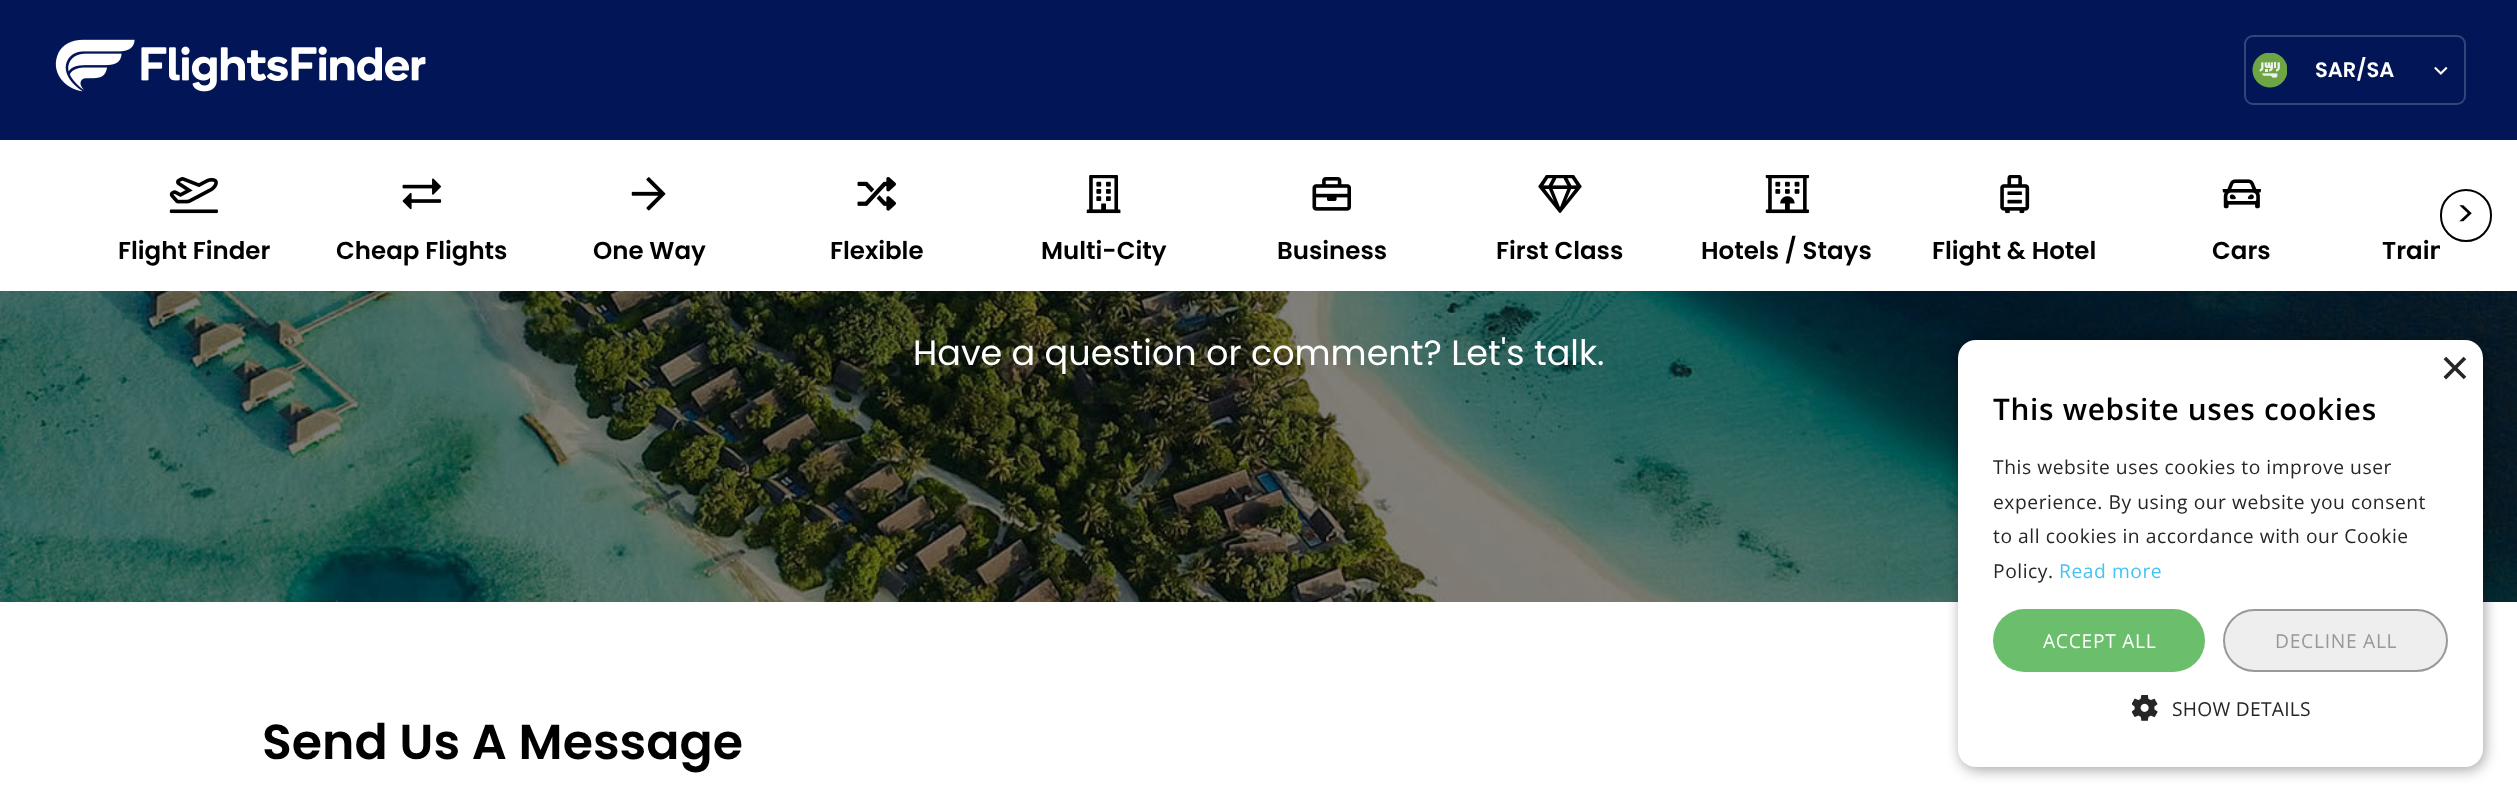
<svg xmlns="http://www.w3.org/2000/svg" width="2517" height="800">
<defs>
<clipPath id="clip1"><rect x="79" y="175" width="2361" height="116"/></clipPath>
</defs>
<rect width="100%" height="100%" fill="#fff"/>
<rect width="2517" height="140" fill="#021556"/>
<image x="55" y="39" width="371" height="53" href="media/1.png"/>
<image x="2252" y="53" width="35" height="35" href="media/2.png"/>
<rect x="2245" y="36" width="220" height="68" rx="8" fill="none" stroke="#354478" stroke-width="2"/>
<text x="2315" y="77" style="font-family:Poppins;font-size:21px;font-weight:600;fill:#fff">SAR/SA</text>
<image x="2434" y="67" width="14" height="8" href="media/3.png"/>
<rect x="2441" y="190" width="50" height="51" rx="25" fill="none" stroke="#000" stroke-width="2"/>
<text x="2456" y="226" style="font-family:Poppins;font-size:35px;fill:#000">&gt;</text>
<image x="169" y="177" width="49" height="37" href="media/4.png"/>
<text x="118" y="259" style="font-family:Poppins;font-size:24.5px;font-weight:600;fill:#000">Flight Finder</text>
<image x="402" y="178" width="40" height="32" href="media/5.png"/>
<text x="336" y="259" style="font-family:Poppins;font-size:24.5px;font-weight:600;fill:#000">Cheap Flights</text>
<image x="631" y="177" width="35" height="34" href="media/6.png"/>
<text x="593" y="259" style="font-family:Poppins;font-size:24.5px;font-weight:600;fill:#000">One Way</text>
<image x="857" y="177" width="39" height="34" href="media/7.png"/>
<text x="830" y="259" style="font-family:Poppins;font-size:24.5px;font-weight:600;fill:#000">Flexible</text>
<image x="1086" y="175" width="35" height="39" href="media/8.png"/>
<text x="1041" y="259" style="font-family:Poppins;font-size:24.5px;font-weight:600;fill:#000">Multi-City</text>
<image x="1312" y="177" width="39" height="34" href="media/9.png"/>
<text x="1277" y="259" style="font-family:Poppins;font-size:24.5px;font-weight:600;fill:#000">Business</text>
<image x="1538" y="175" width="44" height="38" href="media/10.png"/>
<text x="1496" y="259" style="font-family:Poppins;font-size:24.5px;font-weight:600;fill:#000">First Class</text>
<image x="1765" y="175" width="45" height="39" href="media/11.png"/>
<text x="1701" y="259" style="font-family:Poppins;font-size:24.5px;font-weight:600;fill:#000">Hotels / Stays</text>
<image x="2000" y="175" width="30" height="39" href="media/12.png"/>
<text x="1932" y="259" style="font-family:Poppins;font-size:24.5px;font-weight:600;fill:#000">Flight &amp; Hotel</text>
<image x="2222" y="179" width="40" height="30" href="media/13.png"/>
<text x="2212" y="259" style="font-family:Poppins;font-size:24.5px;font-weight:600;fill:#000">Cars</text>
<g clip-path="url(#clip1)">
<text x="2382" y="259" style="font-family:Poppins;font-size:24.5px;font-weight:600;fill:#000">Train</text>
</g>
<image x="0" y="291" width="2517" height="311" href="media/14.png"/>
<text x="913" y="365" style="font-family:Poppins;font-size:35px;fill:#fff">Have a question or comment? Let's talk.</text>
<rect x="1960" y="343" width="525" height="427" rx="18" fill="#00000059" filter="blur(7px)"/>
<rect x="1958" y="340" width="525" height="427" rx="18" fill="#fff"/>
<text x="2440" y="385" style="font-family:Liberation Sans;font-size:51px;fill:#262626">×</text>
<text x="1993" y="420" style="font-family:Open Sans;font-size:29.75px;font-weight:600;letter-spacing:0.7px;fill:#000">This website uses cookies</text>
<text x="1993" y="474" style="font-family:Open Sans;font-size:19.25px;letter-spacing:0.55px;fill:#262626">This website uses cookies to improve user</text>
<text x="1993" y="509" style="font-family:Open Sans;font-size:19.25px;letter-spacing:0.55px;fill:#262626">experience. By using our website you consent</text>
<text x="1993" y="543" style="font-family:Open Sans;font-size:19.25px;letter-spacing:0.55px;fill:#262626">to all cookies in accordance with our Cookie</text>
<text x="1993" y="578" style="font-family:Open Sans;font-size:19.25px;letter-spacing:0.55px;fill:#262626">Policy.</text>
<text x="2059" y="578" style="font-family:Open Sans;font-size:19.25px;letter-spacing:0.55px;fill:#43c3f2">Read more</text>
<rect x="1993" y="609" width="212" height="63" rx="31.5" fill="#6bbe6b"/>
<text x="2043" y="648" style="font-family:Open Sans;font-size:19.25px;letter-spacing:0.7px;fill:#fff">ACCEPT ALL</text>
<rect x="2224" y="610" width="223" height="61" rx="30.5" fill="#eee" stroke="#999" stroke-width="2"/>
<text x="2275" y="648" style="font-family:Open Sans;font-size:19.25px;letter-spacing:0.7px;fill:#999">DECLINE ALL</text>
<image x="2132" y="695" width="26" height="26" href="media/15.png"/>
<text x="2172" y="716" style="font-family:Open Sans;font-size:19.25px;letter-spacing:0.25px;fill:#262626">SHOW DETAILS</text>
<text x="262" y="759" style="font-family:Poppins;font-size:49px;font-weight:600;fill:#000">Send Us A Message</text>
</svg>
